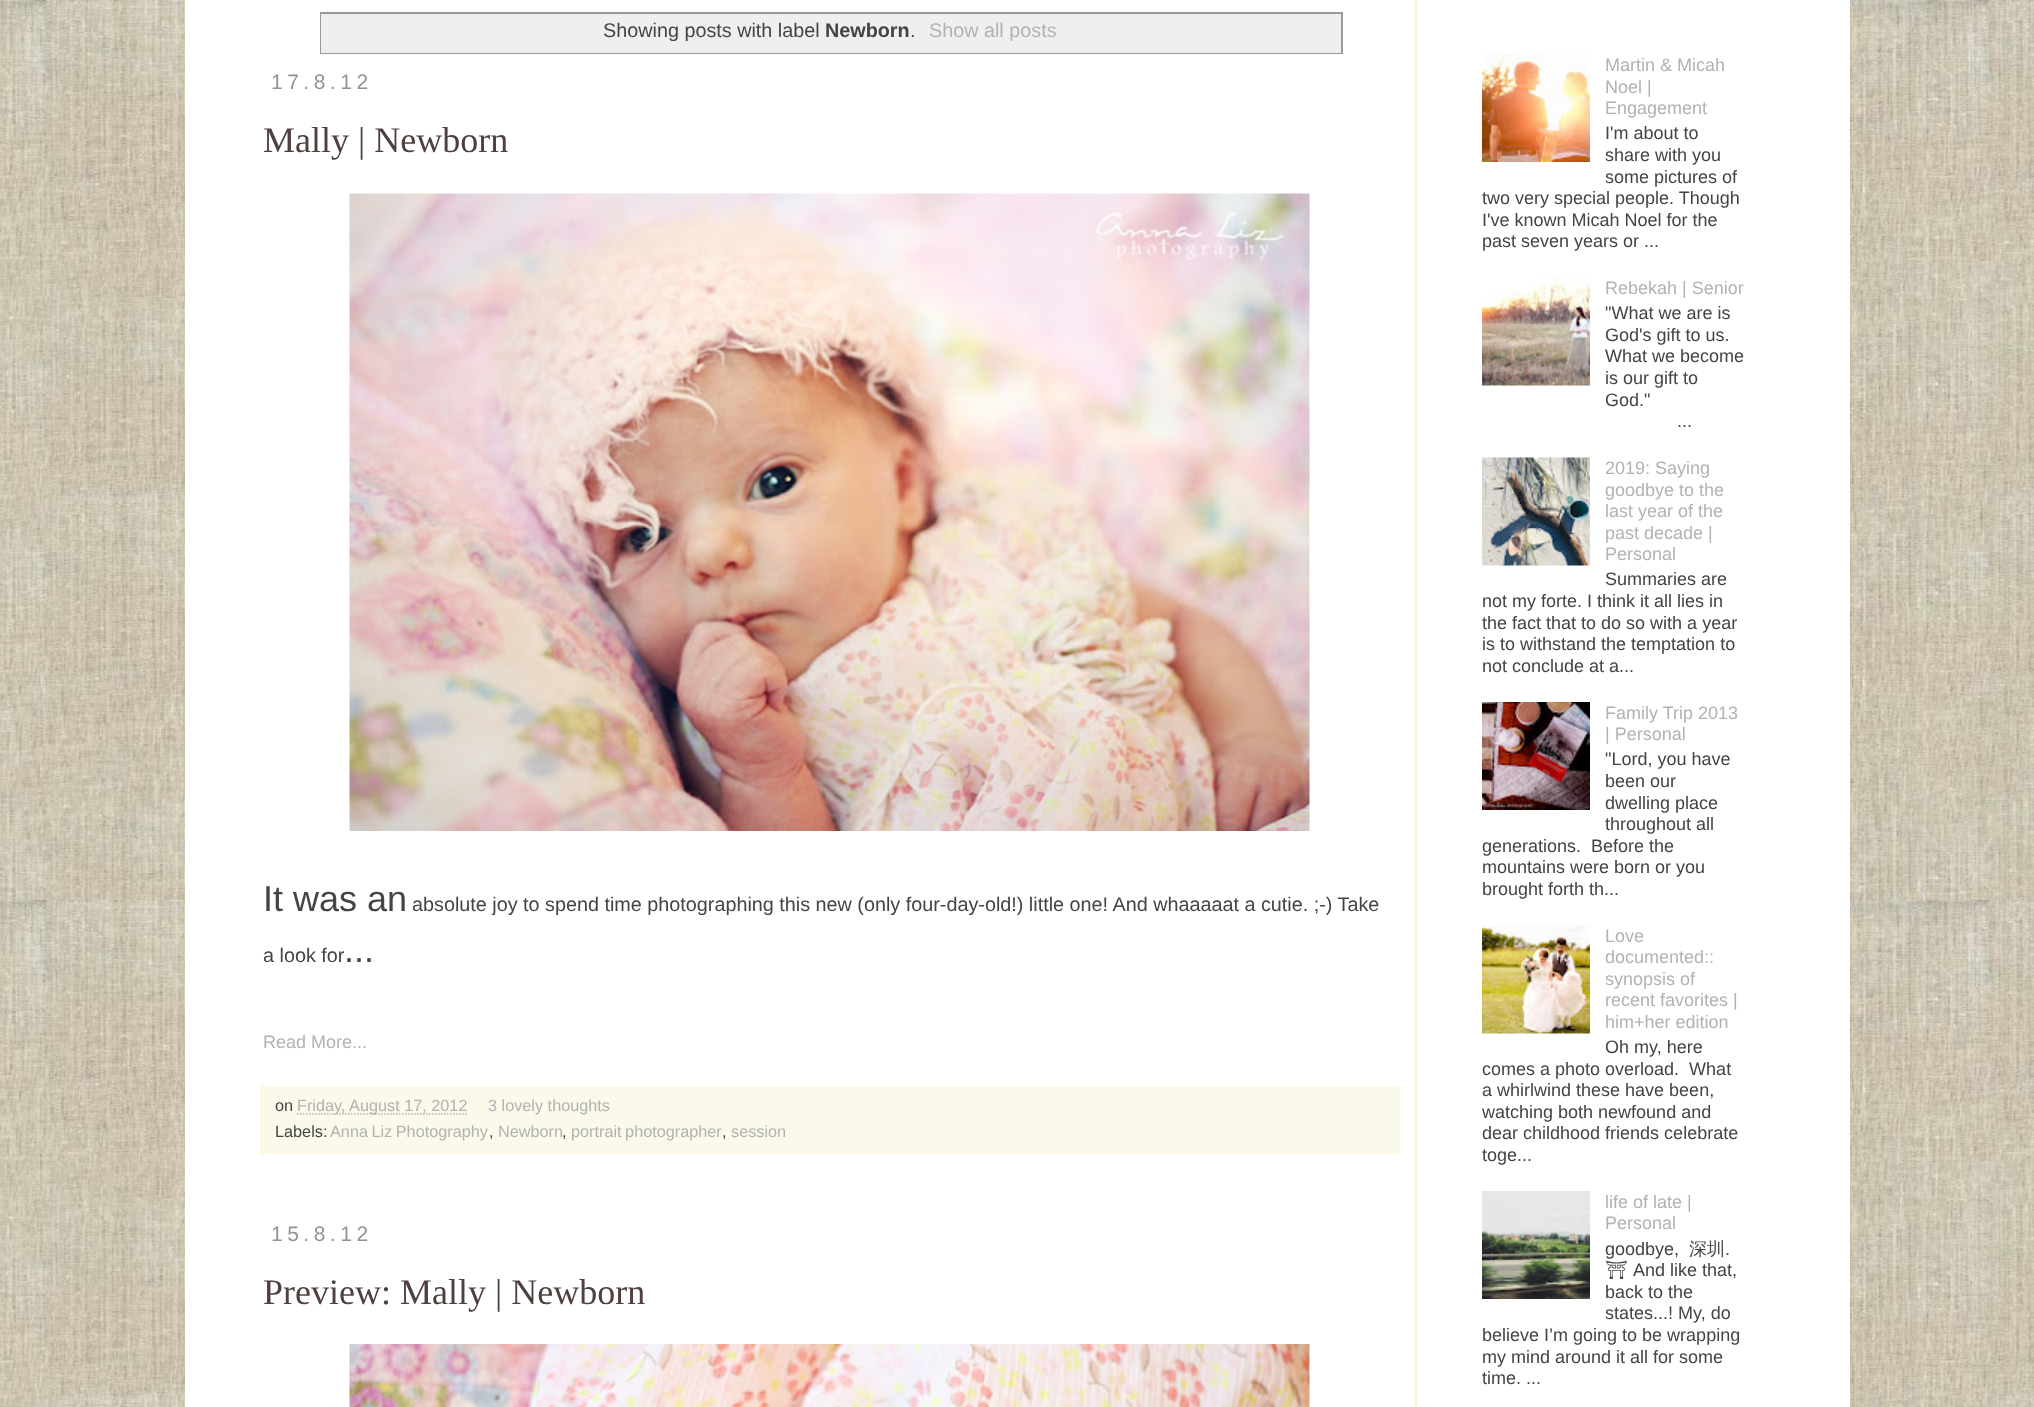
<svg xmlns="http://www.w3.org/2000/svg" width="2034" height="1407">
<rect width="100%" height="100%" fill="#fff"/>
<image x="0" y="258" width="2034" height="1149" href="media/1.png"/>
<image x="0" y="0" width="2034" height="258" href="media/2.png"/>
<rect x="185" width="1665" height="1407" fill="#fff"/>
<rect x="1415" width="2" height="1407" fill="#fff2cc"/>
<rect x="321" y="13" width="1021" height="40" fill="none" stroke="#999" stroke-width="2"/>
<rect x="321" y="14" width="1020" height="39" fill="#efefef"/>
<text x="603" y="37" style="font-family:Liberation Sans;font-size:19.8px;fill:#444">Showing posts with label</text>
<text x="825" y="37" style="font-family:Liberation Sans;font-size:19.8px;font-weight:bold;fill:#444">Newborn</text>
<text x="910" y="37" style="font-family:Liberation Sans;font-size:19.8px;fill:#444">.</text>
<text x="929" y="37" style="font-family:Liberation Sans;font-size:19.8px;fill:#b2b2b2">Show all posts</text>
<text x="271" y="89" style="font-family:Liberation Sans;font-size:21px;letter-spacing:4.5px;fill:#939393">17.8.12</text>
<text x="263" y="152" style="font-family:Liberation Serif;font-size:36px;fill:#503f3f">Mally | Newborn</text>
<image x="349" y="193" width="961" height="638" href="media/3.png"/>
<text x="263" y="911" style="font-family:Liberation Sans;font-size:36px;fill:#444">It was an</text>
<text x="412" y="911" style="font-family:Liberation Sans;font-size:19.8px;fill:#444">absolute joy to spend time photographing this new (only four-day-old!) little one! And whaaaaat a cutie. ;-) Take</text>
<text x="263" y="962" style="font-family:Liberation Sans;font-size:19.8px;fill:#444">a look for</text>
<text x="344" y="962" style="font-family:Liberation Sans;font-size:36px;fill:#444">...</text>
<text x="263" y="1048" style="font-family:Liberation Sans;font-size:18px;fill:#b2b2b2">Read More...</text>
<rect x="260" y="1086" width="1140" height="66" fill="#faf9ea"/>
<rect x="260" y="1152" width="1140" height="2" fill="#fff8e5"/>
<text x="275" y="1111" style="font-family:Liberation Sans;font-size:16.25px;fill:#444">on</text>
<path d="M297 1114h170" fill="none" stroke="#b2b2b2" stroke-width="1.5" stroke-dasharray="1.5 1.5"/>
<text x="297" y="1111" style="font-family:Liberation Sans;font-size:16.25px;fill:#b2b2b2">Friday, August 17, 2012</text>
<text x="488" y="1111" style="font-family:Liberation Sans;font-size:16.25px;fill:#b2b2b2">3 lovely thoughts</text>
<text x="275" y="1137" style="font-family:Liberation Sans;font-size:16.25px;fill:#444">Labels:</text>
<text x="330" y="1137" word-spacing="-1" style="font-family:Liberation Sans;font-size:16.25px;fill:#b2b2b2">Anna Liz Photography</text>
<text x="489" y="1137" style="font-family:Liberation Sans;font-size:16.25px;fill:#444">,</text>
<text x="498" y="1137" style="font-family:Liberation Sans;font-size:16.25px;fill:#b2b2b2">Newborn</text>
<text x="562" y="1137" style="font-family:Liberation Sans;font-size:16.25px;fill:#444">,</text>
<text x="571" y="1137" word-spacing="-1" style="font-family:Liberation Sans;font-size:16.25px;fill:#b2b2b2">portrait photographer</text>
<text x="722" y="1137" style="font-family:Liberation Sans;font-size:16.25px;fill:#444">,</text>
<text x="731" y="1137" style="font-family:Liberation Sans;font-size:16.25px;fill:#b2b2b2">session</text>
<text x="271" y="1241" style="font-family:Liberation Sans;font-size:21px;letter-spacing:4.5px;fill:#939393">15.8.12</text>
<text x="263" y="1304" style="font-family:Liberation Serif;font-size:36px;fill:#503f3f">Preview: Mally | Newborn</text>
<image x="349" y="1344" width="961" height="63" href="media/4.png"/>
<image x="1482" y="54" width="108" height="108" href="media/5.png"/>
<text x="1605" y="71" style="font-family:Liberation Sans;font-size:18px;fill:#b2b2b2">Martin &amp; Micah</text>
<text x="1605" y="93" style="font-family:Liberation Sans;font-size:18px;fill:#b2b2b2">Noel |</text>
<text x="1605" y="114" style="font-family:Liberation Sans;font-size:18px;fill:#b2b2b2">Engagement</text>
<text x="1605" y="139" style="font-family:Liberation Sans;font-size:18px;fill:#444">I'm about to</text>
<text x="1605" y="161" style="font-family:Liberation Sans;font-size:18px;fill:#444">share with you</text>
<text x="1605" y="183" style="font-family:Liberation Sans;font-size:18px;fill:#444">some pictures of</text>
<text x="1482" y="204" style="font-family:Liberation Sans;font-size:18px;fill:#444">two very special people. Though</text>
<text x="1482" y="226" style="font-family:Liberation Sans;font-size:18px;fill:#444">I've known Micah Noel for the</text>
<text x="1482" y="247" style="font-family:Liberation Sans;font-size:18px;fill:#444">past seven years or ...</text>
<image x="1482" y="277" width="108" height="109" href="media/6.png"/>
<text x="1605" y="294" style="font-family:Liberation Sans;font-size:18px;fill:#b2b2b2">Rebekah | Senior</text>
<text x="1605" y="319" style="font-family:Liberation Sans;font-size:18px;fill:#444">"What we are is</text>
<text x="1605" y="341" style="font-family:Liberation Sans;font-size:18px;fill:#444">God's gift to us.</text>
<text x="1605" y="362" style="font-family:Liberation Sans;font-size:18px;fill:#444">What we become</text>
<text x="1605" y="384" style="font-family:Liberation Sans;font-size:18px;fill:#444">is our gift to</text>
<text x="1605" y="406" style="font-family:Liberation Sans;font-size:18px;fill:#444">God."</text>
<text x="1677" y="427" style="font-family:Liberation Sans;font-size:18px;fill:#444">...</text>
<image x="1482" y="457" width="108" height="109" href="media/7.png"/>
<text x="1605" y="474" style="font-family:Liberation Sans;font-size:18px;fill:#b2b2b2">2019: Saying</text>
<text x="1605" y="496" style="font-family:Liberation Sans;font-size:18px;fill:#b2b2b2">goodbye to the</text>
<text x="1605" y="517" style="font-family:Liberation Sans;font-size:18px;fill:#b2b2b2">last year of the</text>
<text x="1605" y="539" style="font-family:Liberation Sans;font-size:18px;fill:#b2b2b2">past decade |</text>
<text x="1605" y="560" style="font-family:Liberation Sans;font-size:18px;fill:#b2b2b2">Personal</text>
<text x="1605" y="585" style="font-family:Liberation Sans;font-size:18px;fill:#444">Summaries are</text>
<text x="1482" y="607" style="font-family:Liberation Sans;font-size:18px;fill:#444">not my forte. I think it all lies in</text>
<text x="1482" y="629" style="font-family:Liberation Sans;font-size:18px;fill:#444">the fact that to do so with a year</text>
<text x="1482" y="650" style="font-family:Liberation Sans;font-size:18px;fill:#444">is to withstand the temptation to</text>
<text x="1482" y="672" style="font-family:Liberation Sans;font-size:18px;fill:#444">not conclude at a...</text>
<image x="1482" y="702" width="108" height="108" href="media/8.png"/>
<text x="1605" y="719" style="font-family:Liberation Sans;font-size:18px;fill:#b2b2b2">Family Trip 2013</text>
<text x="1605" y="740" style="font-family:Liberation Sans;font-size:18px;fill:#b2b2b2">| Personal</text>
<text x="1605" y="765" style="font-family:Liberation Sans;font-size:18px;fill:#444">"Lord, you have</text>
<text x="1605" y="787" style="font-family:Liberation Sans;font-size:18px;fill:#444">been our</text>
<text x="1605" y="809" style="font-family:Liberation Sans;font-size:18px;fill:#444">dwelling place</text>
<text x="1605" y="830" style="font-family:Liberation Sans;font-size:18px;fill:#444">throughout all</text>
<text x="1482" y="852" style="font-family:Liberation Sans;font-size:18px;fill:#444">generations.</text>
<text x="1591" y="852" style="font-family:Liberation Sans;font-size:18px;fill:#444">Before the</text>
<text x="1482" y="873" style="font-family:Liberation Sans;font-size:18px;fill:#444">mountains were born or you</text>
<text x="1482" y="895" style="font-family:Liberation Sans;font-size:18px;fill:#444">brought forth th...</text>
<image x="1482" y="925" width="108" height="109" href="media/9.png"/>
<text x="1605" y="942" style="font-family:Liberation Sans;font-size:18px;fill:#b2b2b2">Love</text>
<text x="1605" y="963" style="font-family:Liberation Sans;font-size:18px;fill:#b2b2b2">documented::</text>
<text x="1605" y="985" style="font-family:Liberation Sans;font-size:18px;fill:#b2b2b2">synopsis of</text>
<text x="1605" y="1006" style="font-family:Liberation Sans;font-size:18px;fill:#b2b2b2">recent favorites |</text>
<text x="1605" y="1028" style="font-family:Liberation Sans;font-size:18px;fill:#b2b2b2">him+her edition</text>
<text x="1605" y="1053" style="font-family:Liberation Sans;font-size:18px;fill:#444">Oh my, here</text>
<text x="1482" y="1075" style="font-family:Liberation Sans;font-size:18px;fill:#444" xml:space="preserve">comes a photo overload.  What</text>
<text x="1482" y="1096" style="font-family:Liberation Sans;font-size:18px;fill:#444">a whirlwind these have been,</text>
<text x="1482" y="1118" style="font-family:Liberation Sans;font-size:18px;fill:#444">watching both newfound and</text>
<text x="1482" y="1139" style="font-family:Liberation Sans;font-size:18px;fill:#444">dear childhood friends celebrate</text>
<text x="1482" y="1161" style="font-family:Liberation Sans;font-size:18px;fill:#444">toge...</text>
<image x="1482" y="1191" width="108" height="108" href="media/10.png"/>
<text x="1605" y="1208" style="font-family:Liberation Sans;font-size:18px;fill:#b2b2b2">life of late |</text>
<text x="1605" y="1229" style="font-family:Liberation Sans;font-size:18px;fill:#b2b2b2">Personal</text>
<text x="1605" y="1255" style="font-family:Liberation Sans;font-size:18px;fill:#444">goodbye,</text>
<text x="1689" y="1255" style="font-family:WenQuanYi Zen Hei;font-size:18px;font-weight:500;fill:#444">深圳</text>
<text x="1725" y="1255" style="font-family:Liberation Sans;font-size:18px;fill:#444">.</text>
<text x="1605" y="1276" style="font-family:Noto Emoji;font-size:18px;fill:#444">⛩</text>
<text x="1633" y="1276" style="font-family:Liberation Sans;font-size:18px;fill:#444">And like that,</text>
<text x="1605" y="1298" style="font-family:Liberation Sans;font-size:18px;fill:#444">back to the</text>
<text x="1605" y="1319" style="font-family:Liberation Sans;font-size:18px;fill:#444">states...! My, do</text>
<text x="1482" y="1341" style="font-family:Liberation Sans;font-size:18px;fill:#444">believe I’m going to be wrapping</text>
<text x="1482" y="1363" style="font-family:Liberation Sans;font-size:18px;fill:#444">my mind around it all for some</text>
<text x="1482" y="1384" style="font-family:Liberation Sans;font-size:18px;fill:#444">time. ...</text>
</svg>
